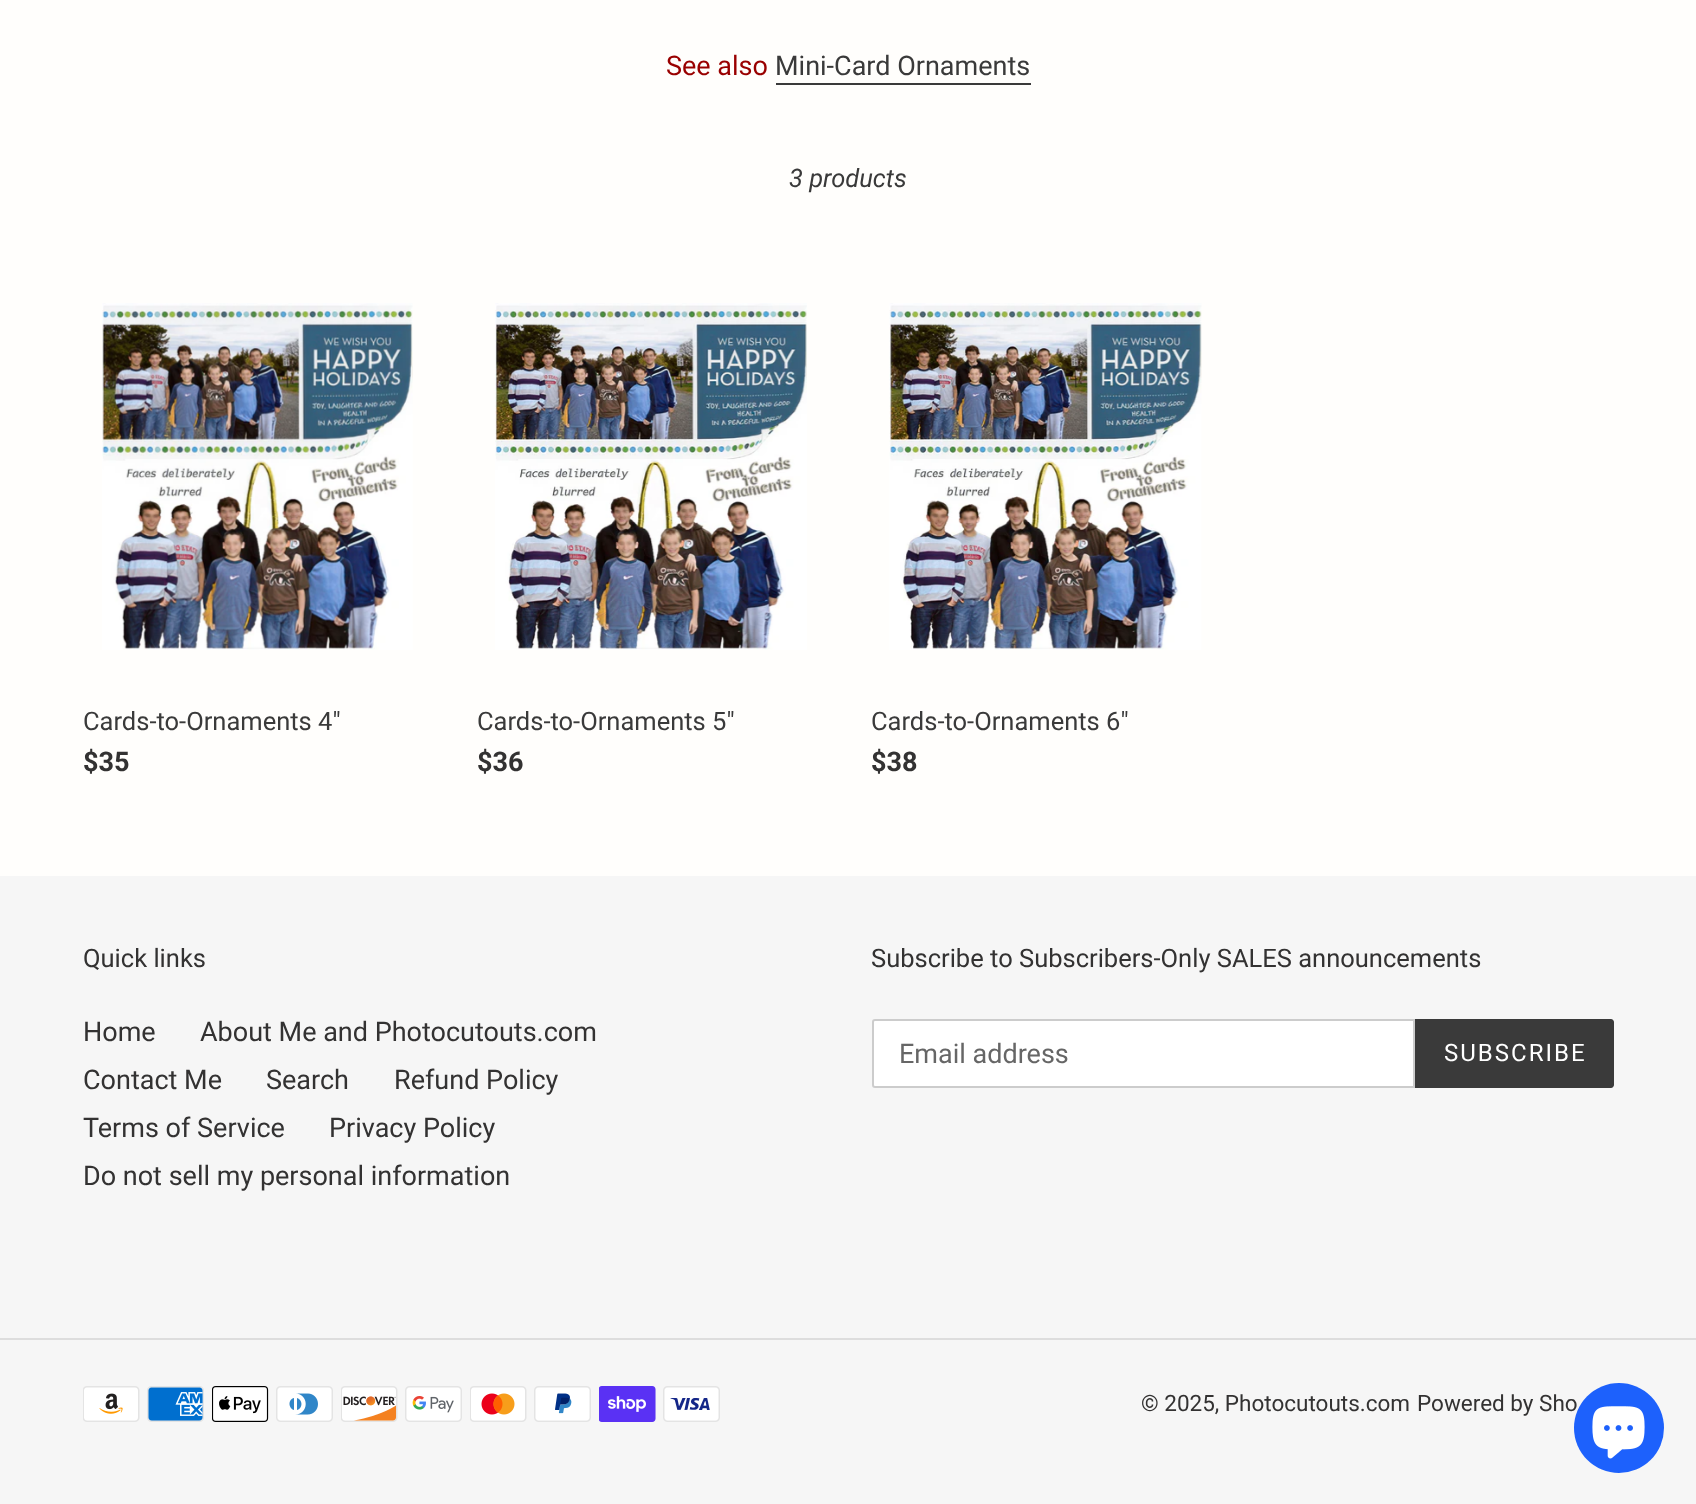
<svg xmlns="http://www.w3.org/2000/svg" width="1696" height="1504">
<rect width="100%" height="100%" fill="#fffefc"/>
<text x="666" y="75" style="font-family:Roboto;font-size:27px;fill:#900">See also</text>
<text x="775" y="75" style="font-family:Roboto;font-size:27px;fill:#3a3a3a">Mini-Card Ornaments</text>
<rect x="776" y="83" width="255" height="2" fill="#3a3a3a"/>
<text x="789" y="187" style="font-family:Roboto;font-size:25.5px;font-style:italic;fill:#3a3a3a">3 products</text>
<image x="102" y="303" width="311" height="347" href="media/1.png"/>
<text x="83" y="730" style="font-family:Roboto;font-size:25.5px;fill:#3a3a3a">Cards-to-Ornaments 4"</text>
<text x="83" y="771" style="font-family:Roboto;font-size:27px;font-weight:bold;fill:#333232">$35</text>
<image x="495" y="303" width="312" height="347" href="media/2.png"/>
<text x="477" y="730" style="font-family:Roboto;font-size:25.5px;fill:#3a3a3a">Cards-to-Ornaments 5"</text>
<text x="477" y="771" style="font-family:Roboto;font-size:27px;font-weight:bold;fill:#333232">$36</text>
<image x="889" y="303" width="313" height="347" href="media/3.png"/>
<text x="871" y="730" style="font-family:Roboto;font-size:25.5px;fill:#3a3a3a">Cards-to-Ornaments 6"</text>
<text x="871" y="771" style="font-family:Roboto;font-size:27px;font-weight:bold;fill:#333232">$38</text>
<rect y="876" width="1696" height="628" fill="#f6f6f6"/>
<text x="83" y="967" style="font-family:Roboto;font-size:25.5px;fill:#333232">Quick links</text>
<text x="83" y="1041" style="font-family:Roboto;font-size:27px;fill:#333232">Home</text>
<text x="200" y="1041" style="font-family:Roboto;font-size:27px;fill:#333232">About Me and Photocutouts.com</text>
<text x="83" y="1089" style="font-family:Roboto;font-size:27px;fill:#333232">Contact Me</text>
<text x="266" y="1089" style="font-family:Roboto;font-size:27px;fill:#333232">Search</text>
<text x="394" y="1089" style="font-family:Roboto;font-size:27px;fill:#333232">Refund Policy</text>
<text x="83" y="1137" style="font-family:Roboto;font-size:27px;fill:#333232">Terms of Service</text>
<text x="329" y="1137" style="font-family:Roboto;font-size:27px;fill:#333232">Privacy Policy</text>
<text x="83" y="1185" style="font-family:Roboto;font-size:27px;fill:#333232">Do not sell my personal information</text>
<text x="871" y="967" style="font-family:Roboto;font-size:25.5px;fill:#333232">Subscribe to Subscribers-Only SALES announcements</text>
<path d="M875 1020h539v67h-539c-1 0-2-1-2-2v-63c0-1 1-2 2-2z" fill="#fff" stroke="#ccc" stroke-width="2"/>
<text x="899" y="1063" style="font-family:Roboto;font-size:27px;fill:#666">Email address</text>
<path d="M1415 1019h196c1.5 0 3 1.5 3 3v63c0 1.5-1.5 3-3 3h-196z" fill="#3a3a3a"/>
<text x="1444" y="1061" style="font-family:Roboto;font-size:24px;letter-spacing:2px;fill:#fff">SUBSCRIBE</text>
<rect y="1338" width="1696" height="2" fill="#ddd"/>
<image x="83" y="1386" width="57" height="36" href="media/4.png"/>
<image x="147" y="1386" width="57" height="36" href="media/5.png"/>
<image x="212" y="1386" width="57" height="36" href="media/6.png"/>
<image x="276" y="1386" width="57" height="36" href="media/7.png"/>
<image x="341" y="1386" width="57" height="36" href="media/8.png"/>
<image x="405" y="1386" width="57" height="36" href="media/9.png"/>
<image x="470" y="1386" width="57" height="36" href="media/10.png"/>
<image x="534" y="1386" width="57" height="36" href="media/11.png"/>
<image x="599" y="1386" width="57" height="36" href="media/12.png"/>
<image x="663" y="1386" width="57" height="36" href="media/13.png"/>
<text x="1141" y="1411" style="font-family:Roboto;font-size:22.5px;fill:#333232">© 2025, Photocutouts.com</text>
<text x="1417" y="1411" style="font-family:Roboto;font-size:22.5px;fill:#333232">Powered by Sho</text>
<circle cx="1619" cy="1428" r="45" fill="#1d61fc"/>
<image x="1592" y="1406" width="53" height="53" href="media/14.png"/>
</svg>
